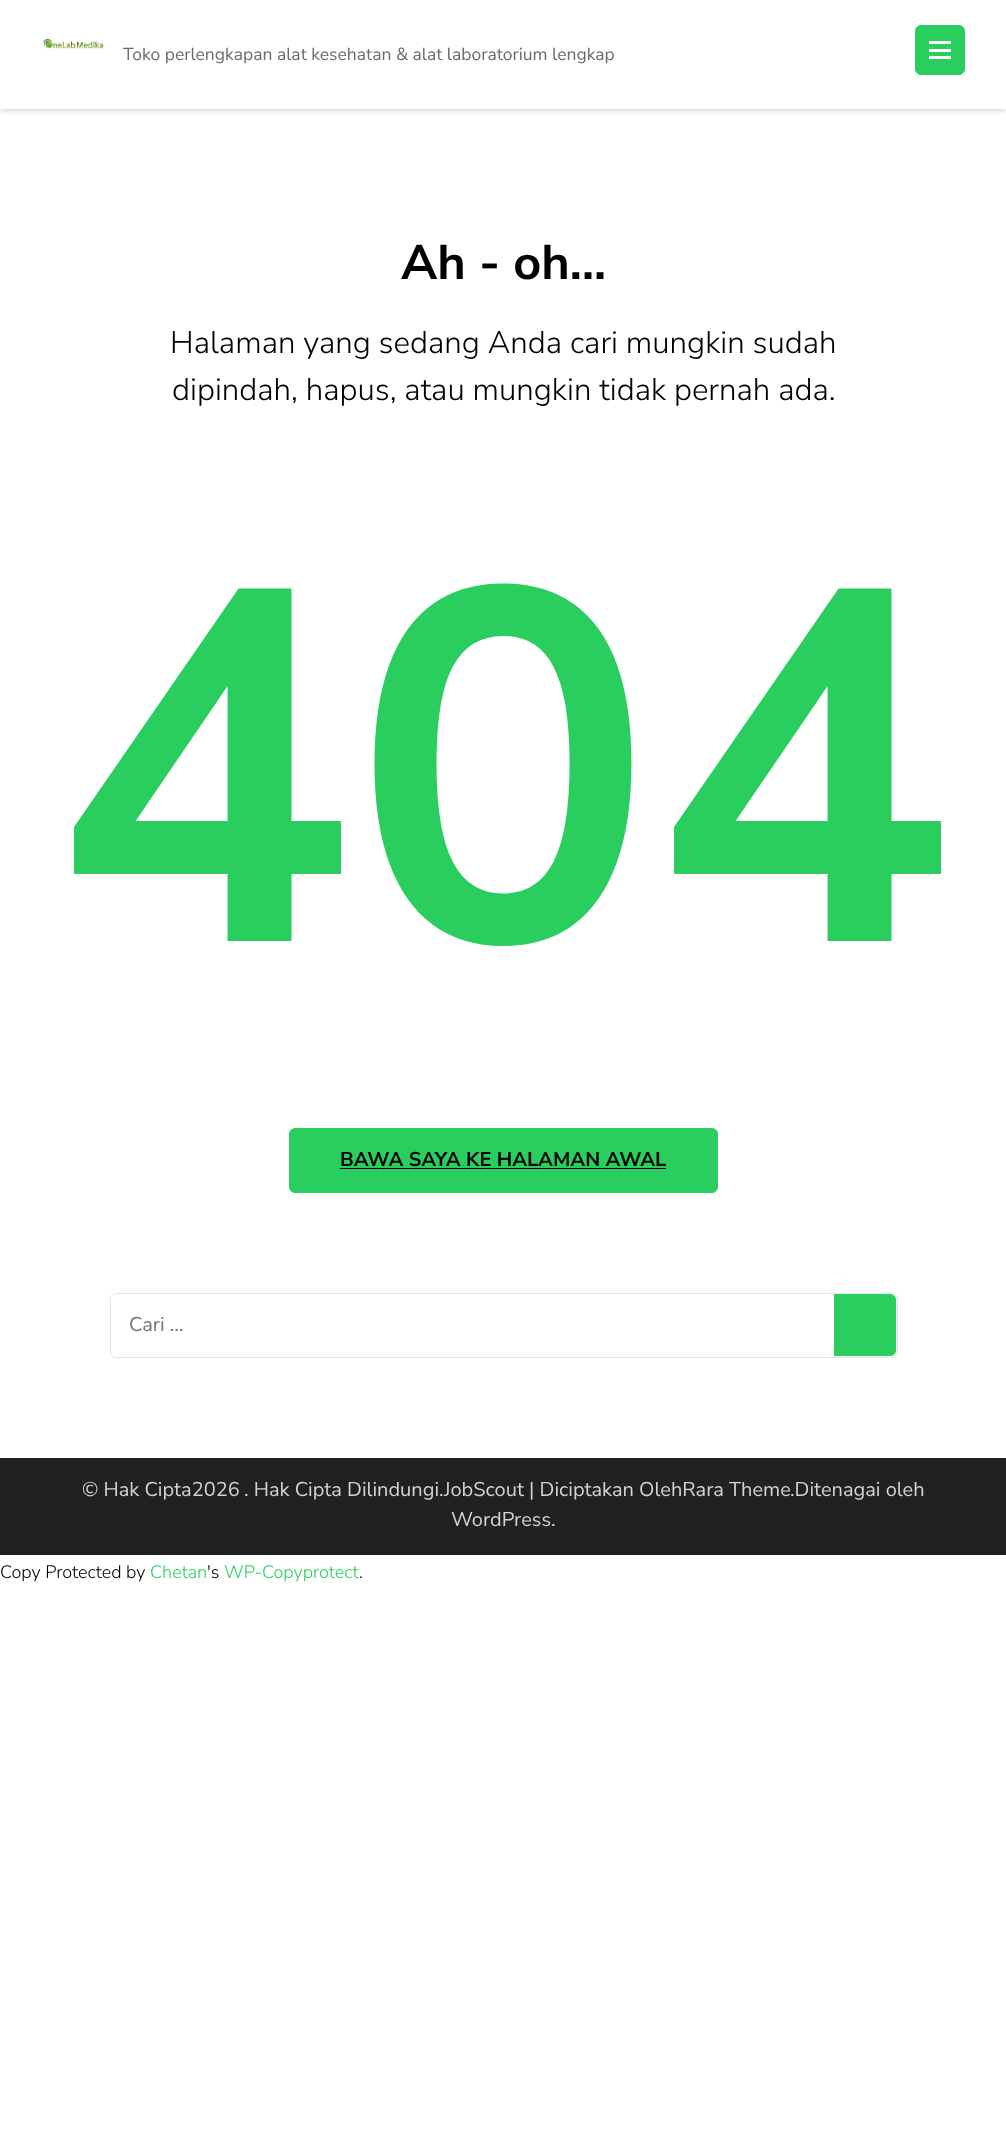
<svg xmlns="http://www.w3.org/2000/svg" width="1006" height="2147">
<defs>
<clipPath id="clip1"><path d="M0 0h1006v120h-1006zm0 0h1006v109h-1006z" clip-rule="evenodd"/></clipPath>
</defs>
<rect width="100%" height="100%" fill="#fff"/>
<g clip-path="url(#clip1)">
<rect y="3" width="1006" height="108" fill="#00000029" filter="blur(2.5px)"/>
</g>
<image x="42" y="38" width="62" height="12" href="media/1.png"/>
<text x="123" y="60" style="font-family:Nunito Sans;font-size:17.5px;fill:#6a6a6a">Toko perlengkapan alat kesehatan &amp; alat laboratorium lengkap</text>
<rect x="915.5" y="25.5" width="49" height="49" rx="5.5" fill="#2ace5e" stroke="#2ace5e"/>
<rect x="929" y="41" width="22" height="3" fill="#fff"/>
<rect x="929" y="49" width="22" height="3" fill="#fff"/>
<rect x="929" y="56" width="22" height="3" fill="#fff"/>
<text x="401" y="279" style="font-family:Nunito Sans;font-size:48.75px;font-weight:bold;fill:#000">Ah - oh...</text>
<text x="170" y="353" style="font-family:Nunito Sans;font-size:31.25px;font-weight:300;fill:#000">Halaman yang sedang Anda cari mungkin sudah</text>
<text x="172" y="400" style="font-family:Nunito Sans;font-size:31.25px;font-weight:300;fill:#000">dipindah, hapus, atau mungkin tidak pernah ada.</text>
<text x="53" y="941" style="font-family:Nunito Sans;font-size:500px;font-weight:bold;fill:#2ace5e">404</text>
<rect x="289.5" y="1128.5" width="428" height="64" rx="5.5" fill="#2ace5e" stroke="#2acf5f"/>
<text x="340" y="1166" style="font-family:Nunito Sans;font-size:20px;font-weight:bold;fill:#000">BAWA SAYA KE HALAMAN AWAL</text>
<rect x="340" y="1168" width="326" height="1" fill="#000"/>
<rect x="110.5" y="1293.5" width="787" height="64" rx="5.5" fill="none" stroke="#e6e6e6"/>
<path d="M117 1294h717v62h-717c-3.5 0-6-2.5-6-6v-50c0-3.5 2.5-6 6-6z" fill="#fff"/>
<text x="129" y="1331" style="font-family:Nunito Sans;font-size:20px;fill:#757575">Cari …</text>
<path d="M834 1294h56c3.5 0 6 2.5 6 6v50c0 3.5-2.5 6-6 6h-56z" fill="#2ace5e"/>
<rect y="1458" width="1006" height="97" fill="#212121"/>
<text x="82" y="1496" style="font-family:Nunito Sans;font-size:20px;fill:#d3d3d3">© Hak Cipta2026</text>
<text x="244" y="1496" style="font-family:Nunito Sans;font-size:20px;fill:#d3d3d3">. Hak Cipta Dilindungi.</text>
<text x="444" y="1496" style="font-family:Nunito Sans;font-size:20px;fill:#d3d3d3">JobScout | Diciptakan OlehRara Theme</text>
<text x="790" y="1496" style="font-family:Nunito Sans;font-size:20px;fill:#d3d3d3">.Ditenagai oleh</text>
<text x="451" y="1526" style="font-family:Nunito Sans;font-size:20px;fill:#d3d3d3">WordPress.</text>
<text x="0" y="1578" style="font-family:Nunito Sans;font-size:18px;font-weight:300;fill:#000">Copy Protected by</text>
<text x="150" y="1578" style="font-family:Nunito Sans;font-size:18px;font-weight:300;fill:#2ace5e">Chetan</text>
<text x="207" y="1578" style="font-family:Nunito Sans;font-size:18px;font-weight:300;fill:#000">'s</text>
<text x="224" y="1578" style="font-family:Nunito Sans;font-size:18px;font-weight:300;fill:#2ace5e">WP-Copyprotect</text>
<text x="359" y="1578" style="font-family:Nunito Sans;font-size:18px;font-weight:300;fill:#000">.</text>
</svg>
